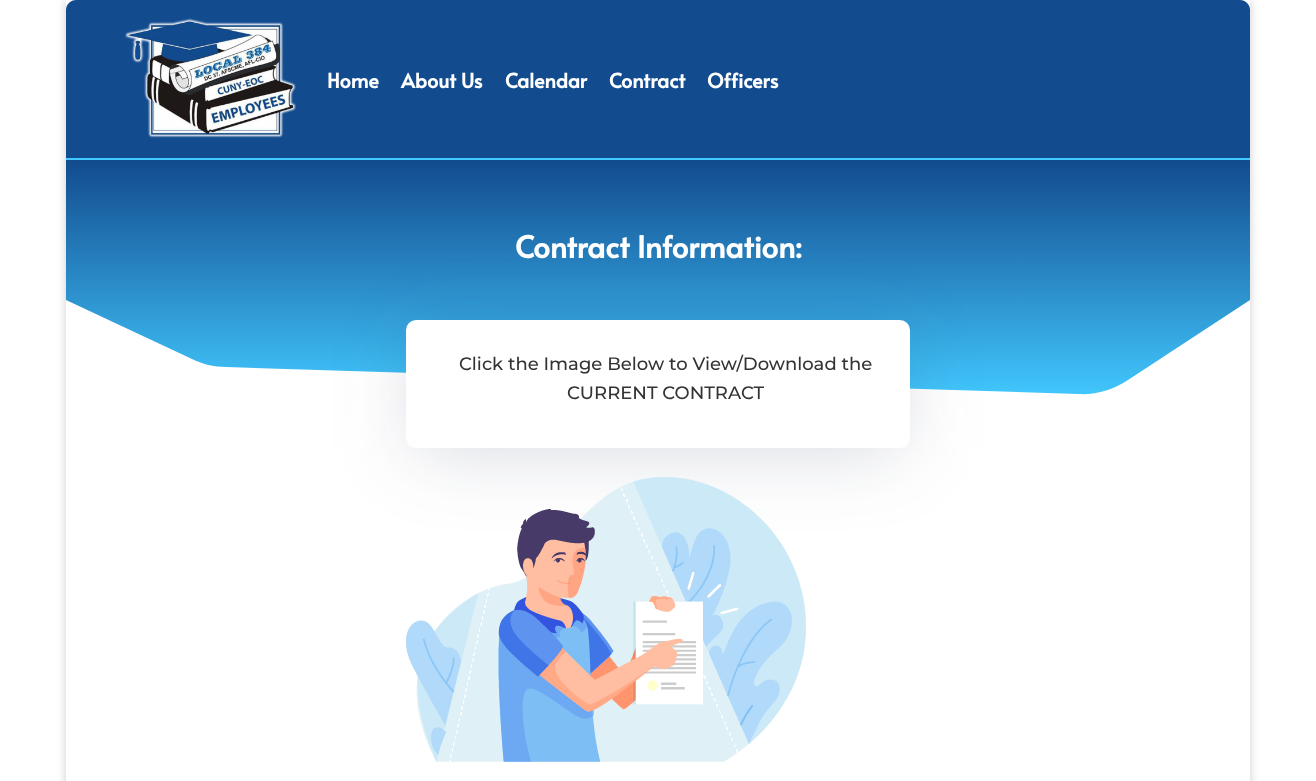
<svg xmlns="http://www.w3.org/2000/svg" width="1316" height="781">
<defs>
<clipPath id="clip1"><path d="M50 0h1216v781h-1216zm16 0h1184v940h-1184z" clip-rule="evenodd"/></clipPath>
<linearGradient id="g1" gradientUnits="userSpaceOnUse" x1="658" y1="160" x2="658" y2="400"><stop offset="0" stop-color="#124b8e"/><stop offset="1" stop-color="#42c9ff"/></linearGradient>
</defs>
<rect width="100%" height="100%" fill="#fff"/>
<g clip-path="url(#clip1)">
<rect x="66" width="1184" height="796" fill="#00000033" filter="blur(5px)"/>
</g>
<path d="M76 0h1164c5.5 0 10 4.5 10 10v148h-1184v-148c0-5.5 4.5-10 10-10z" fill="#124b8e"/>
<rect x="66" y="158" width="1184" height="2" fill="#42c9ff"/>
<image x="125" y="18" width="172" height="120" href="media/1.png"/>
<text x="327" y="88" style="font-family:Alata;font-size:20px;font-weight:bold;fill:#fff">Home</text>
<text x="401" y="88" style="font-family:Alata;font-size:20px;font-weight:bold;fill:#fff">About Us</text>
<text x="505" y="88" style="font-family:Alata;font-size:20px;font-weight:bold;fill:#fff">Calendar</text>
<text x="609" y="88" style="font-family:Alata;font-size:20px;font-weight:bold;fill:#fff">Contract</text>
<text x="707" y="88" style="font-family:Alata;font-size:20px;font-weight:bold;fill:#fff">Officers</text>
<rect x="66" y="160" width="1184" height="235" fill="url(#g1)"/>
<path d="M1078 394l-852-27c-12 0-24-3-34-8l-126-59v100h1184v-100l-122 80c-15 10-32 15-50 14z" fill="#fff"/>
<rect x="416" y="340" width="484" height="108" fill="#2c365c33" filter="blur(40px)"/>
<text x="515" y="258" style="font-family:Alata;font-size:30px;font-weight:bold;fill:#fff">Contract Information:</text>
<rect x="406" y="320" width="504" height="128" rx="10" fill="#fff"/>
<text x="459" y="370" style="font-family:Montserrat;font-size:18px;font-weight:500;fill:#333">Click the Image Below to View/Download the</text>
<text x="567" y="399" style="font-family:Montserrat;font-size:18px;font-weight:500;fill:#333">CURRENT CONTRACT</text>
<image x="406" y="477" width="400" height="285" href="media/2.png"/>
</svg>
